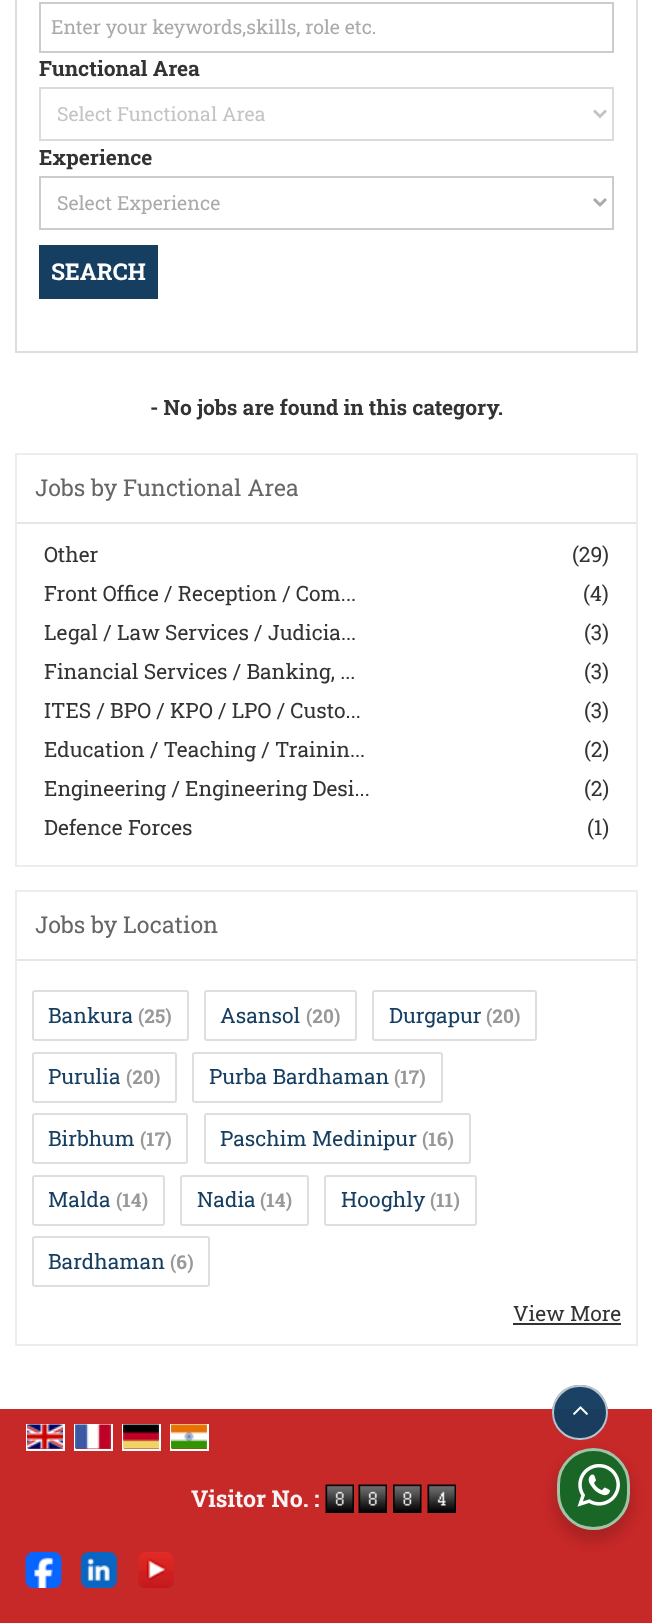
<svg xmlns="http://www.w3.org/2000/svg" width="652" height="1623">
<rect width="100%" height="100%" fill="#fff"/>
<rect x="16" y="-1" width="621" height="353" fill="none" stroke="#dedede" stroke-width="2"/>
<rect x="40" y="3" width="573" height="49" fill="none" stroke="#ccc" stroke-width="2"/>
<text x="51" y="34" style="font-family:Roboto Slab;font-size:19.5px;fill:#aaa">Enter your keywords,skills, role etc.</text>
<text x="39" y="76" style="font-family:Roboto Slab;font-size:21px;font-weight:bold;fill:#333">Functional Area</text>
<rect x="40" y="88" width="573" height="52" fill="none" stroke="#dbdbdb" stroke-width="2"/>
<path d="M594 110.5l6 6l6-6" fill="none" stroke="#c4c4c4" stroke-width="3"/>
<text x="57" y="121" style="font-family:Roboto Slab;font-size:19.5px;fill:#c4c4c4">Select Functional Area</text>
<text x="39" y="165" style="font-family:Roboto Slab;font-size:21px;font-weight:bold;fill:#333">Experience</text>
<rect x="40" y="177" width="573" height="52" fill="none" stroke="#ccc" stroke-width="2"/>
<path d="M594 199l6 6l6-6" fill="none" stroke="#aaa" stroke-width="3"/>
<text x="57" y="210" style="font-family:Roboto Slab;font-size:19.5px;fill:#aaa">Select Experience</text>
<rect x="39" y="245" width="119" height="54" fill="#163e61"/>
<text x="51" y="280" style="font-family:Roboto Slab;font-size:23.1px;font-weight:bold;fill:#fff">SEARCH</text>
<text x="150" y="415" style="font-family:Roboto Slab;font-size:21px;font-weight:bold;fill:#333">- No jobs are found in this category.</text>
<rect x="16" y="454" width="621" height="412" fill="none" stroke="#ededed" stroke-width="2"/>
<rect x="17" y="522" width="619" height="2" fill="#e6e6e6"/>
<text x="35" y="496" style="font-family:Roboto Slab;font-size:23.1px;fill:#666">Jobs by Functional Area</text>
<text x="44" y="562" style="font-family:Roboto Slab;font-size:21px;fill:#333">Other</text>
<text x="572" y="562" style="font-family:Roboto Slab;font-size:21px;fill:#333">(29)</text>
<text x="44" y="601" style="font-family:Roboto Slab;font-size:21px;fill:#333">Front Office / Reception / Com...</text>
<text x="583" y="601" style="font-family:Roboto Slab;font-size:21px;fill:#333">(4)</text>
<text x="44" y="640" style="font-family:Roboto Slab;font-size:21px;fill:#333">Legal / Law Services / Judicia...</text>
<text x="584" y="640" style="font-family:Roboto Slab;font-size:21px;fill:#333">(3)</text>
<text x="44" y="679" style="font-family:Roboto Slab;font-size:21px;fill:#333">Financial Services / Banking, ...</text>
<text x="584" y="679" style="font-family:Roboto Slab;font-size:21px;fill:#333">(3)</text>
<text x="44" y="718" style="font-family:Roboto Slab;font-size:21px;fill:#333">ITES / BPO / KPO / LPO / Custo...</text>
<text x="584" y="718" style="font-family:Roboto Slab;font-size:21px;fill:#333">(3)</text>
<text x="44" y="757" style="font-family:Roboto Slab;font-size:21px;fill:#333">Education / Teaching / Trainin...</text>
<text x="584" y="757" style="font-family:Roboto Slab;font-size:21px;fill:#333">(2)</text>
<text x="44" y="796" style="font-family:Roboto Slab;font-size:21px;fill:#333">Engineering / Engineering Desi...</text>
<text x="584" y="796" style="font-family:Roboto Slab;font-size:21px;fill:#333">(2)</text>
<text x="44" y="835" style="font-family:Roboto Slab;font-size:21px;fill:#333">Defence Forces</text>
<text x="587" y="835" style="font-family:Roboto Slab;font-size:21px;fill:#333">(1)</text>
<rect x="16" y="891" width="621" height="454" fill="none" stroke="#ededed" stroke-width="2"/>
<rect x="17" y="959" width="619" height="2" fill="#e6e6e6"/>
<text x="35" y="933" style="font-family:Roboto Slab;font-size:23.1px;fill:#666">Jobs by Location</text>
<rect x="33" y="991" width="155" height="49" rx="2" fill="none" stroke="#dedede" stroke-width="2"/>
<text x="48" y="1023" style="font-family:Roboto Slab;font-size:21px;fill:#163e61">Bankura</text>
<text x="138" y="1023" style="font-family:Roboto Slab;font-size:19px;font-weight:bold;fill:#999">(25)</text>
<rect x="205" y="991" width="151" height="49" rx="2" fill="none" stroke="#dedede" stroke-width="2"/>
<text x="220" y="1023" style="font-family:Roboto Slab;font-size:21px;fill:#163e61">Asansol</text>
<text x="306" y="1023" style="font-family:Roboto Slab;font-size:19px;font-weight:bold;fill:#999">(20)</text>
<rect x="373" y="991" width="163" height="49" rx="2" fill="none" stroke="#dedede" stroke-width="2"/>
<text x="389" y="1023" style="font-family:Roboto Slab;font-size:21px;fill:#163e61">Durgapur</text>
<text x="486" y="1023" style="font-family:Roboto Slab;font-size:19px;font-weight:bold;fill:#999">(20)</text>
<rect x="33" y="1053" width="143" height="49" rx="2" fill="none" stroke="#dedede" stroke-width="2"/>
<text x="48" y="1084" style="font-family:Roboto Slab;font-size:21px;fill:#163e61">Purulia</text>
<text x="126" y="1084" style="font-family:Roboto Slab;font-size:19px;font-weight:bold;fill:#999">(20)</text>
<rect x="193" y="1053" width="249" height="49" rx="2" fill="none" stroke="#dedede" stroke-width="2"/>
<text x="209" y="1084" style="font-family:Roboto Slab;font-size:21px;fill:#163e61">Purba Bardhaman</text>
<text x="394" y="1084" style="font-family:Roboto Slab;font-size:19px;font-weight:bold;fill:#999">(17)</text>
<rect x="33" y="1114" width="154" height="49" rx="2" fill="none" stroke="#dedede" stroke-width="2"/>
<text x="48" y="1146" style="font-family:Roboto Slab;font-size:21px;fill:#163e61">Birbhum</text>
<text x="140" y="1146" style="font-family:Roboto Slab;font-size:19px;font-weight:bold;fill:#999">(17)</text>
<rect x="205" y="1114" width="265" height="49" rx="2" fill="none" stroke="#dedede" stroke-width="2"/>
<text x="220" y="1146" style="font-family:Roboto Slab;font-size:21px;fill:#163e61">Paschim Medinipur</text>
<text x="422" y="1146" style="font-family:Roboto Slab;font-size:19px;font-weight:bold;fill:#999">(16)</text>
<rect x="33" y="1176" width="131" height="49" rx="2" fill="none" stroke="#dedede" stroke-width="2"/>
<text x="48" y="1207" style="font-family:Roboto Slab;font-size:21px;fill:#163e61">Malda</text>
<text x="116" y="1207" style="font-family:Roboto Slab;font-size:19px;font-weight:bold;fill:#999">(14)</text>
<rect x="181" y="1176" width="127" height="49" rx="2" fill="none" stroke="#dedede" stroke-width="2"/>
<text x="197" y="1207" style="font-family:Roboto Slab;font-size:21px;fill:#163e61">Nadia</text>
<text x="260" y="1207" style="font-family:Roboto Slab;font-size:19px;font-weight:bold;fill:#999">(14)</text>
<rect x="325" y="1176" width="151" height="49" rx="2" fill="none" stroke="#dedede" stroke-width="2"/>
<text x="341" y="1207" style="font-family:Roboto Slab;font-size:21px;fill:#163e61">Hooghly</text>
<text x="430" y="1207" style="font-family:Roboto Slab;font-size:19px;font-weight:bold;fill:#999">(11)</text>
<rect x="33" y="1237" width="176" height="49" rx="2" fill="none" stroke="#dedede" stroke-width="2"/>
<text x="48" y="1269" style="font-family:Roboto Slab;font-size:21px;fill:#163e61">Bardhaman</text>
<text x="170" y="1269" style="font-family:Roboto Slab;font-size:19px;font-weight:bold;fill:#999">(6)</text>
<text x="513" y="1321" style="font-family:Roboto Slab;font-size:21px;fill:#333">View More</text>
<rect x="513" y="1323" width="108" height="2" fill="#333"/>
<rect y="1409" width="652" height="214" fill="#c72828"/>
<rect x="27" y="1425" width="37" height="25" fill="none" stroke="#fff" stroke-width="2"/>
<image x="27" y="1424" width="36" height="25" href="media/1.png"/>
<rect x="75" y="1425" width="37" height="25" fill="none" stroke="#fff" stroke-width="2"/>
<image x="75" y="1424" width="36" height="25" href="media/2.png"/>
<rect x="123" y="1425" width="37" height="25" fill="none" stroke="#fff" stroke-width="2"/>
<image x="123" y="1424" width="36" height="25" href="media/3.png"/>
<rect x="171" y="1425" width="37" height="25" fill="none" stroke="#fff" stroke-width="2"/>
<image x="171" y="1424" width="36" height="25" href="media/4.png"/>
<text x="191" y="1507" style="font-family:Roboto Slab;font-size:23.1px;font-weight:bold;fill:#fcf4f4">Visitor No. :</text>
<image x="325" y="1484" width="29" height="29" href="media/5.png"/>
<image x="358" y="1484" width="29" height="29" href="media/6.png"/>
<image x="393" y="1484" width="29" height="29" href="media/7.png"/>
<image x="427" y="1484" width="29" height="29" href="media/8.png"/>
<image x="25" y="1552" width="37" height="36" href="media/9.png"/>
<image x="81" y="1552" width="36" height="36" href="media/10.png"/>
<image x="138" y="1552" width="36" height="36" href="media/11.png"/>
<rect x="552" y="1385" width="56" height="55" rx="27.5" fill="#163e61fa"/>
<rect x="553" y="1386" width="54" height="53" rx="26.5" fill="none" stroke="#ffffffb0" stroke-width="2"/>
<image x="573" y="1406" width="15" height="9" href="media/12.png"/>
<rect x="554" y="1454" width="79" height="88" rx="39.5" fill="#00000024" filter="blur(6px)"/>
<rect x="557" y="1448" width="73" height="82" rx="36.5" fill="#196626"/>
<rect x="558.5" y="1449.5" width="70" height="79" rx="35" fill="none" stroke="#ffffff99" stroke-width="3"/>
<image x="577" y="1463" width="43" height="44" href="media/13.png"/>
</svg>
